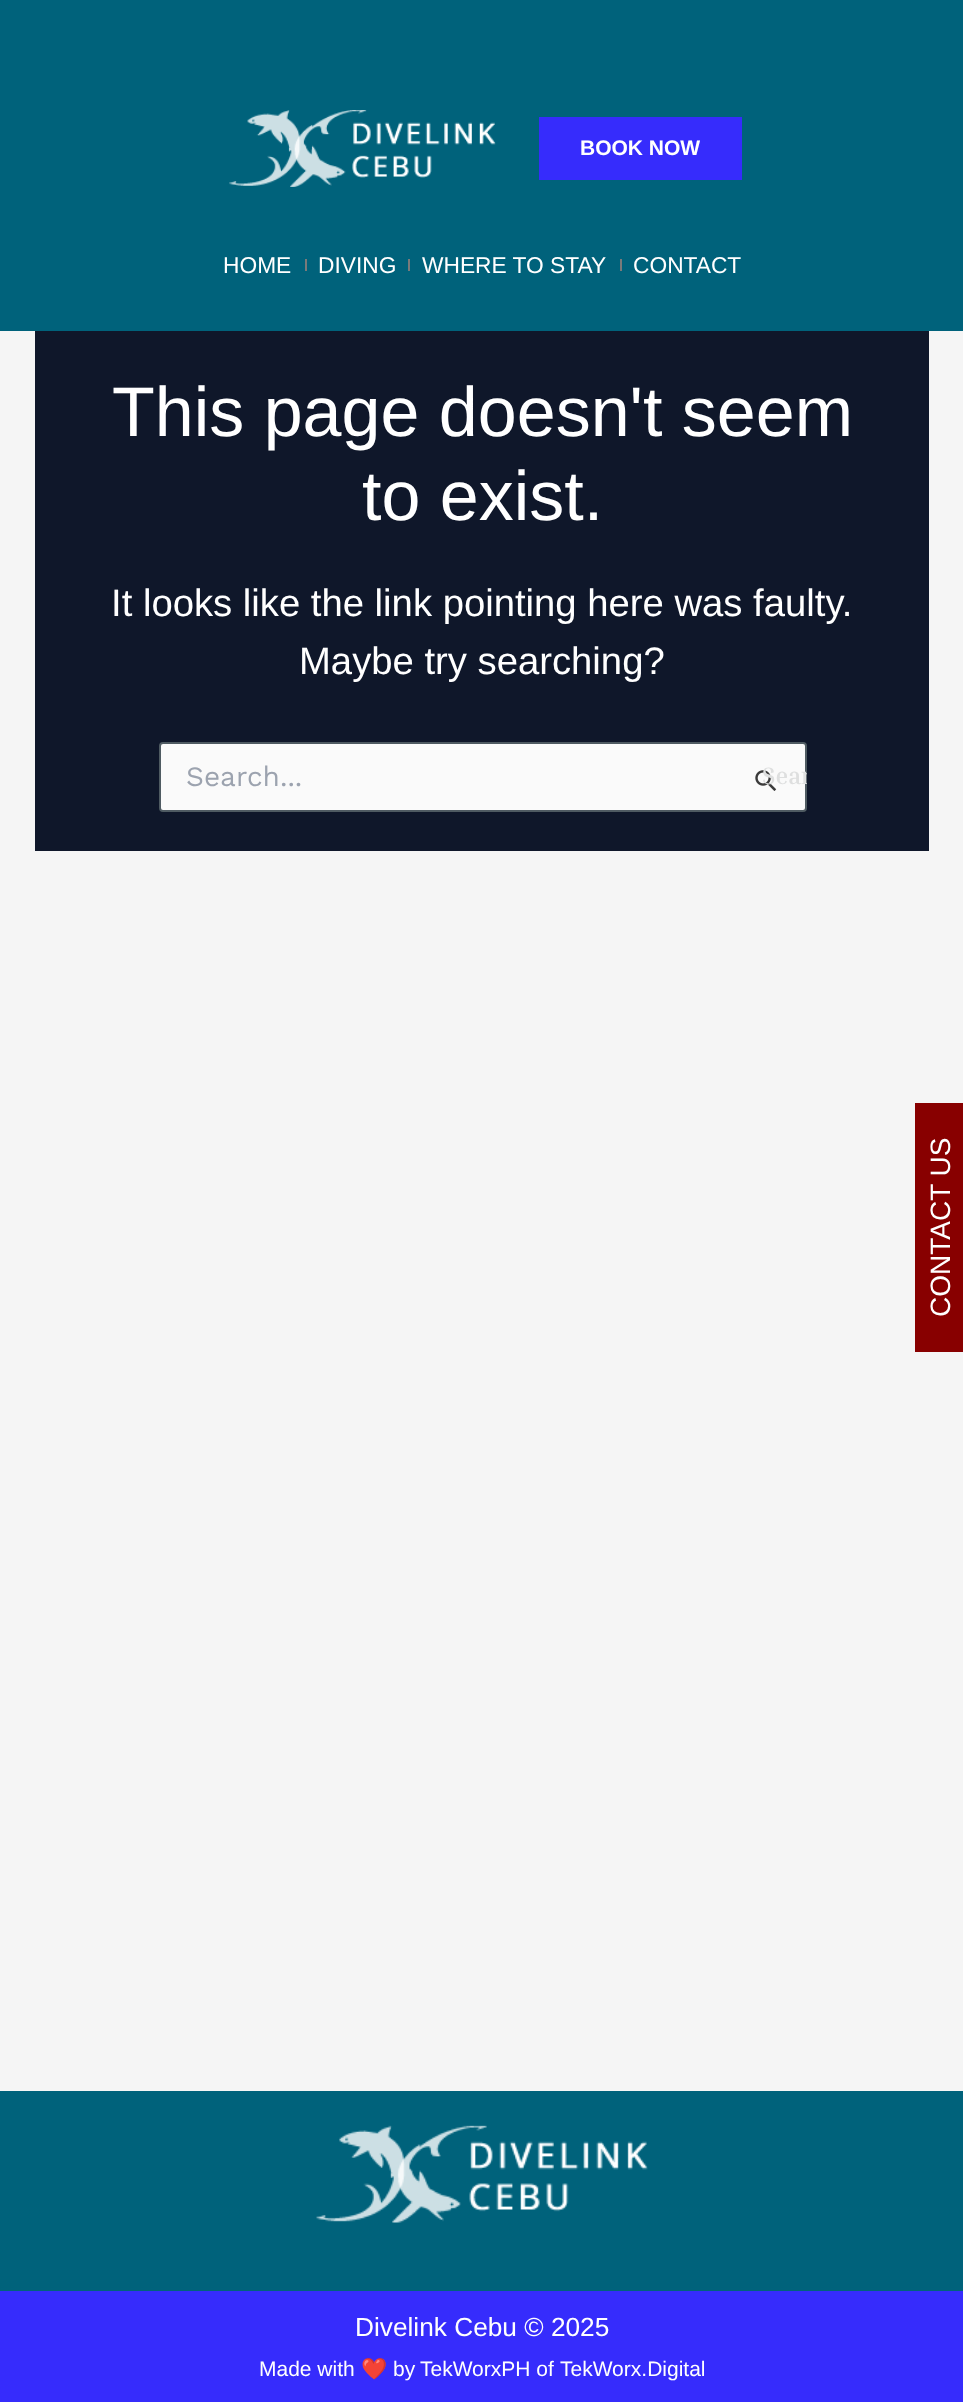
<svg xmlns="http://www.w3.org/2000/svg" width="963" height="2402">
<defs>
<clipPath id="clip1"><rect x="728" y="742" width="79" height="70" rx="4"/></clipPath>
</defs>
<rect width="100%" height="100%" fill="#f5f5f5"/>
<rect width="963" height="331" fill="#00627b"/>
<image x="229" y="110" width="267" height="77" href="media/1.png"/>
<rect x="539" y="117" width="203" height="63" fill="#362cfc"/>
<text x="580" y="155" style="font-family:Liberation Sans;font-size:21px;font-weight:bold;fill:#fff">BOOK NOW</text>
<text x="223" y="273" style="font-family:Liberation Sans;font-size:22.75px;fill:#fff">HOME</text>
<rect x="305" y="259" width="2" height="12" fill="#7a7a7a"/>
<text x="318" y="273" style="font-family:Liberation Sans;font-size:22.75px;fill:#fff">DIVING</text>
<rect x="408" y="259" width="2" height="12" fill="#7a7a7a"/>
<text x="422" y="273" style="font-family:Liberation Sans;font-size:22.75px;fill:#fff">WHERE TO STAY</text>
<rect x="620" y="259" width="2" height="12" fill="#7a7a7a"/>
<text x="633" y="273" style="font-family:Liberation Sans;font-size:22.75px;fill:#fff">CONTACT</text>
<rect x="35" y="331" width="894" height="520" fill="#0f172a"/>
<text x="112" y="436" style="font-family:Liberation Sans;font-size:70px;fill:#fff">This page doesn't seem</text>
<text x="362" y="520" style="font-family:Liberation Sans;font-size:70px;fill:#fff">to exist.</text>
<text x="111" y="616" style="font-family:Liberation Sans;font-size:38.25px;fill:#fff">It looks like the link pointing here was faulty.</text>
<text x="299" y="674" style="font-family:Liberation Sans;font-size:38.25px;fill:#fff">Maybe try searching?</text>
<rect x="160" y="743" width="646" height="68" rx="3" fill="#fafafa" stroke="#4f5b62" stroke-width="2"/>
<text x="186" y="786" style="font-family:Work Sans;font-size:28px;fill:#9ca3af">Search...</text>
<image x="755" y="770" width="22" height="21" href="media/2.png"/>
<g clip-path="url(#clip1)">
<text x="762" y="784" style="font-family:Inria Serif;font-size:24px;font-weight:bold;fill:#dedfdf">Sear</text>
</g>
<rect y="2291" width="963" height="111" fill="#362cfc"/>
<rect x="915" y="1103" width="48" height="249" fill="#800"/>
<text x="950" y="1317" transform="rotate(-90 950 1317)" style="font-family:Liberation Sans;font-size:28px;fill:#fff">CONTACT US</text>
<text x="355" y="2336" style="font-family:Liberation Sans;font-size:26.25px;fill:#fff">Divelink Cebu © 2025</text>
<text x="259" y="2376" style="font-family:Liberation Sans;font-size:21px;fill:#fff">Made with</text>
<text x="361" y="2376" style="font-family:Noto Color Emoji;font-size:21px;fill:#fff">❤️️</text>
<text x="393" y="2376" style="font-family:Liberation Sans;font-size:21px;fill:#fff">by</text>
<text x="420" y="2376" style="font-family:Liberation Sans;font-size:21px;fill:#fff">TekWorxPH of</text>
<text x="560" y="2376" style="font-family:Liberation Sans;font-size:21px;fill:#fff">TekWorx.Digital</text>
<rect y="2091" width="963" height="200" fill="#00627b"/>
<image x="316" y="2125" width="332" height="98" href="media/3.png"/>
</svg>
